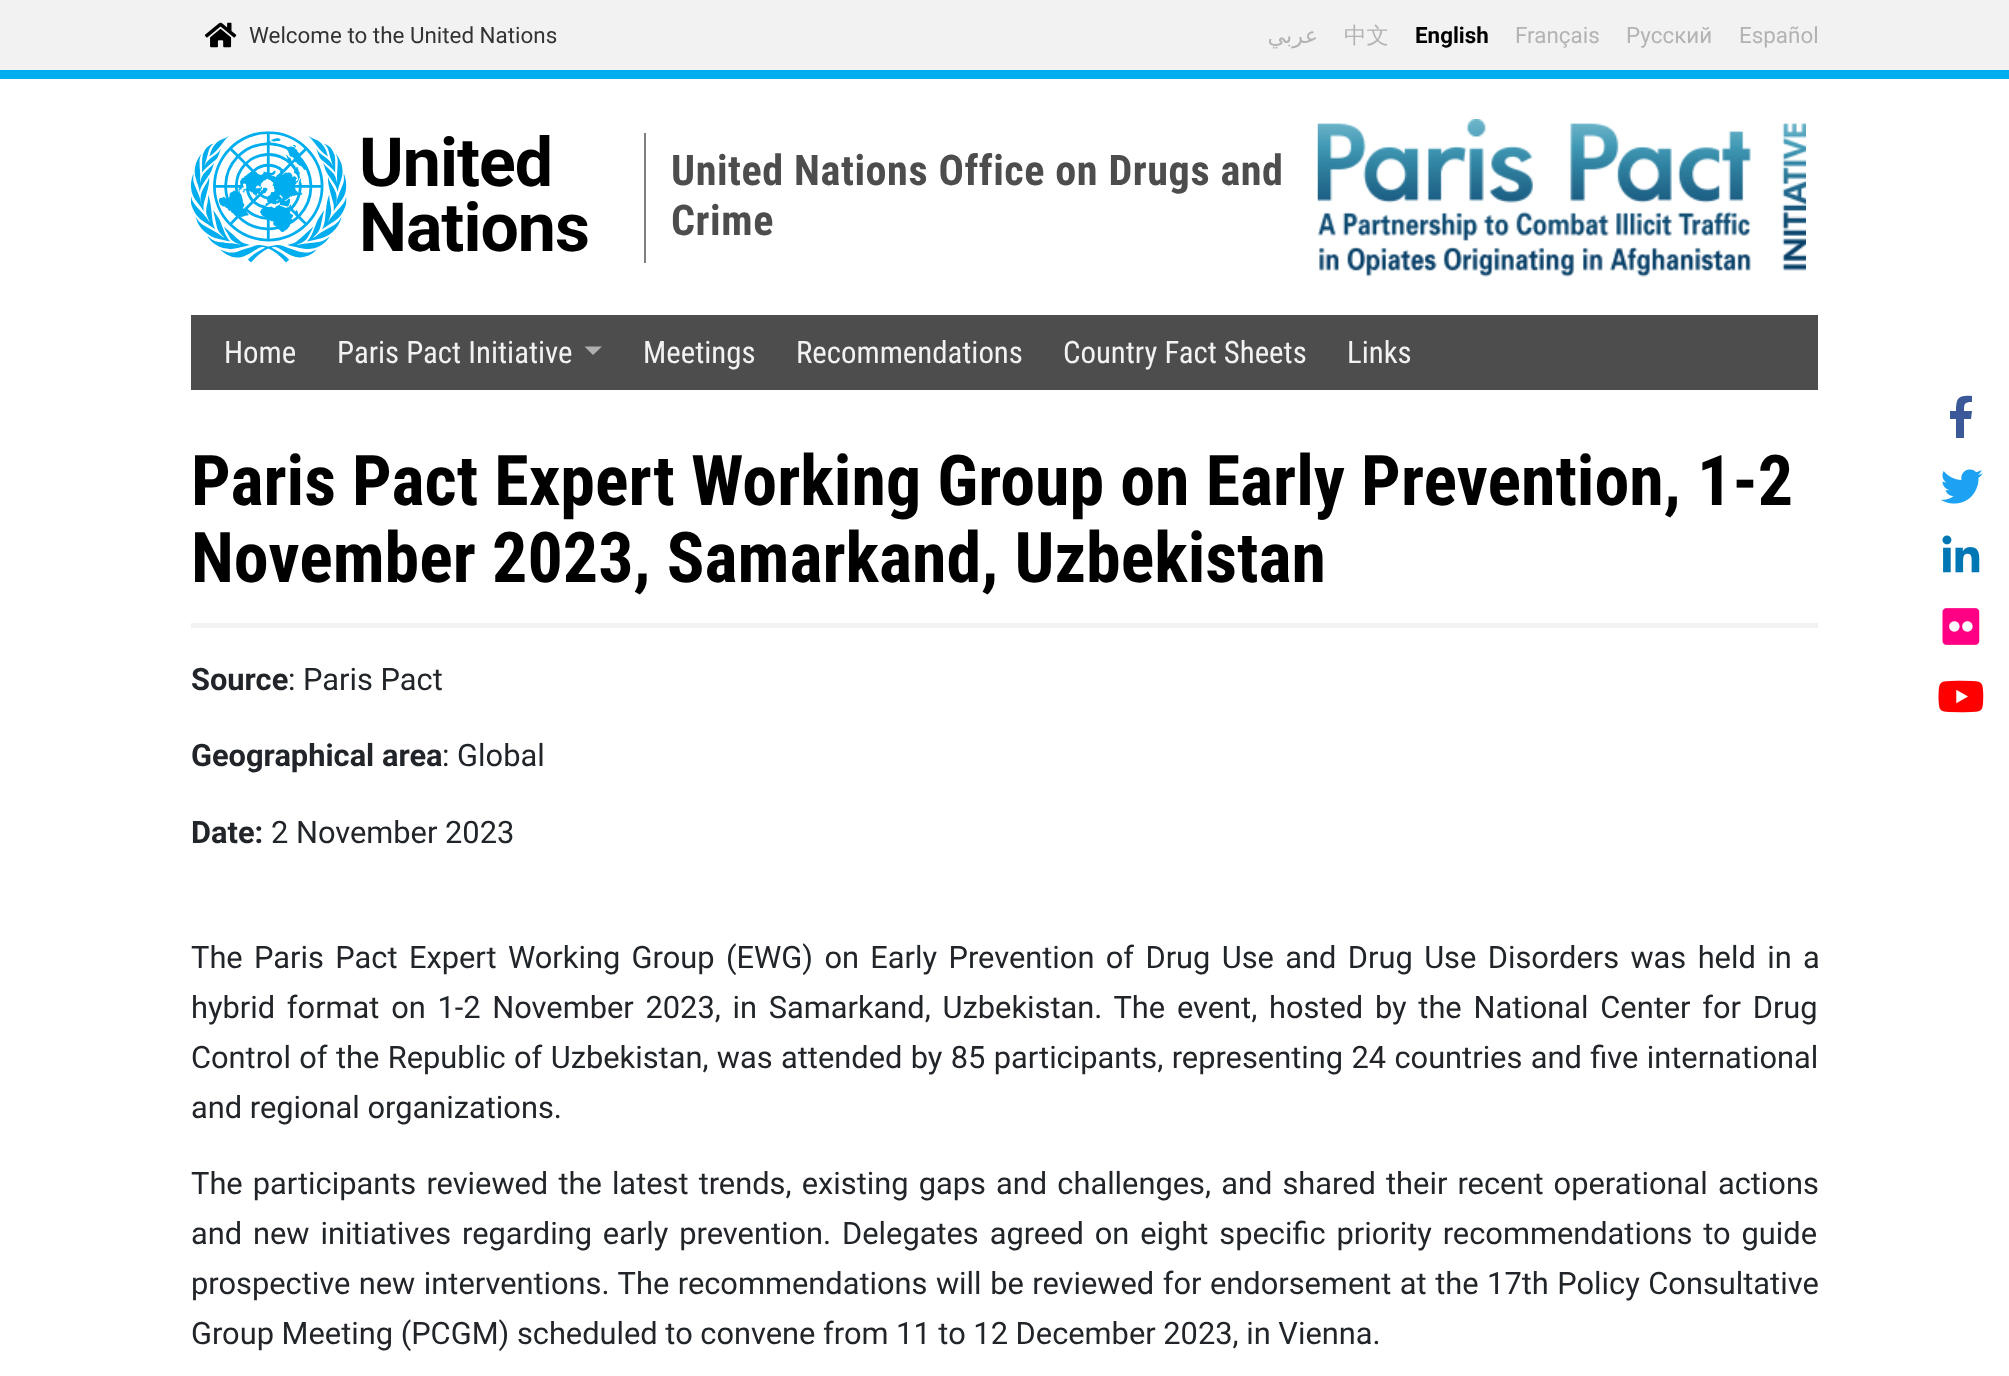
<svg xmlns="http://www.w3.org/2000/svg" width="2009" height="1376">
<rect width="100%" height="100%" fill="#fff"/>
<rect width="2009" height="70" fill="#f2f2f2"/>
<rect y="70" width="2009" height="9" fill="#00adef"/>
<image x="204" y="22" width="33" height="26" href="media/1.png"/>
<text x="249" y="43" style="font-family:Roboto;font-size:22.4px;fill:#333">Welcome to the United Nations</text>
<text x="1318" y="43" style="font-family:DejaVu Sans;font-size:22.4px;direction:rtl;fill:#b3b3b3">عربي</text>
<text x="1344" y="43" style="font-family:WenQuanYi Zen Hei;font-size:22.4px;font-weight:500;fill:#b3b3b3">中文</text>
<text x="1415" y="43" style="font-family:Roboto;font-size:22.4px;font-weight:bold;fill:#000">English</text>
<text x="1515" y="43" style="font-family:Roboto;font-size:22.4px;fill:#b3b3b3">Français</text>
<text x="1626" y="43" style="font-family:Roboto;font-size:22.4px;fill:#b3b3b3">Русский</text>
<text x="1739" y="43" style="font-family:Roboto;font-size:22.4px;fill:#b3b3b3">Español</text>
<image x="191" y="131" width="156" height="132" href="media/2.png"/>
<rect x="644" y="133" width="2" height="130" fill="#808080"/>
<text x="359" y="186" style="font-family:Roboto;font-size:68px;font-weight:bold;letter-spacing:-1px;fill:#000">United</text>
<text x="359" y="251" style="font-family:Roboto;font-size:68px;font-weight:bold;letter-spacing:-1px;fill:#000">Nations</text>
<text x="671" y="185" style="font-family:Roboto Condensed;font-size:42.2px;font-weight:bold;letter-spacing:0.55px;fill:#4d4d4d">United Nations Office on Drugs and</text>
<text x="671" y="235" style="font-family:Roboto Condensed;font-size:42.2px;font-weight:bold;letter-spacing:0.55px;fill:#4d4d4d">Crime</text>
<image x="1317" y="119" width="489" height="158" href="media/3.png"/>
<rect x="191" y="315" width="1627" height="75" fill="#4d4d4d"/>
<text x="224" y="363" style="font-family:Roboto Condensed;font-size:30.8px;fill:#f2f2f2">Home</text>
<text x="337" y="363" style="font-family:Roboto Condensed;font-size:30.8px;fill:#f2f2f2">Paris Pact Initiative</text>
<path d="M584.5 346.5h17.5l-9 8.5z" fill="#b0b0b0"/>
<text x="643" y="363" style="font-family:Roboto Condensed;font-size:30.8px;fill:#f2f2f2">Meetings</text>
<text x="796" y="363" style="font-family:Roboto Condensed;font-size:30.8px;fill:#f2f2f2">Recommendations</text>
<text x="1063" y="363" style="font-family:Roboto Condensed;font-size:30.8px;fill:#f2f2f2">Country Fact Sheets</text>
<text x="1347" y="363" style="font-family:Roboto Condensed;font-size:30.8px;fill:#f2f2f2">Links</text>
<rect x="191" y="623" width="1627" height="5" fill="#f2f2f2"/>
<text x="191" y="505" style="font-family:Roboto Condensed;font-size:70px;font-weight:bold;fill:#000">Paris Pact Expert Working Group on Early Prevention, 1-2</text>
<text x="191" y="582" style="font-family:Roboto Condensed;font-size:70px;font-weight:bold;fill:#000">November 2023, Samarkand, Uzbekistan</text>
<text x="191" y="690" style="font-family:Roboto;font-size:30.8px;font-weight:bold;fill:#212529">Source</text>
<text x="288" y="690" style="font-family:Roboto;font-size:30.8px;fill:#212529">: Paris Pact</text>
<text x="191" y="766" style="font-family:Roboto;font-size:30.8px;font-weight:bold;fill:#212529">Geographical area</text>
<text x="442" y="766" style="font-family:Roboto;font-size:30.8px;fill:#212529">: Global</text>
<text x="191" y="843" style="font-family:Roboto;font-size:30.8px;font-weight:bold;fill:#212529">Date:</text>
<text x="271" y="843" style="font-family:Roboto;font-size:30.8px;fill:#212529">2 November 2023</text>
<text x="191" y="968" word-spacing="3.75" style="font-family:Roboto;font-size:30.8px;fill:#212529">The Paris Pact Expert Working Group (EWG) on Early Prevention of Drug Use and Drug Use Disorders was held in a</text>
<text x="191" y="1018" word-spacing="4.1" style="font-family:Roboto;font-size:30.8px;fill:#212529">hybrid format on 1-2 November 2023, in Samarkand, Uzbekistan. The event, hosted by the National Center for Drug</text>
<text x="191" y="1068" word-spacing="0.75" style="font-family:Roboto;font-size:30.8px;fill:#212529">Control of the Republic of Uzbekistan, was attended by 85 participants, representing 24 countries and five international</text>
<text x="191" y="1118" style="font-family:Roboto;font-size:30.8px;fill:#212529">and regional organizations.</text>
<text x="191" y="1194" word-spacing="2.5" style="font-family:Roboto;font-size:30.8px;fill:#212529">The participants reviewed the latest trends, existing gaps and challenges, and shared their recent operational actions</text>
<text x="191" y="1244" word-spacing="3.25" style="font-family:Roboto;font-size:30.8px;fill:#212529">and new initiatives regarding early prevention. Delegates agreed on eight specific priority recommendations to guide</text>
<text x="191" y="1294" word-spacing="0.9" style="font-family:Roboto;font-size:30.8px;fill:#212529">prospective new interventions. The recommendations will be reviewed for endorsement at the 17th Policy Consultative</text>
<text x="191" y="1344" style="font-family:Roboto;font-size:30.8px;fill:#212529">Group Meeting (PCGM) scheduled to convene from 11 to 12 December 2023, in Vienna.</text>
<path d="M1971 419h-7v19h-8v-19h-6v-8h6c0-14 3-16 16-15v6c-8 0-8 2-8 9h8z" fill="#3b5998"/>
<image x="1941" y="469" width="42" height="35" href="media/4.png"/>
<image x="1942" y="535" width="38" height="38" href="media/5.png"/>
<image x="1942" y="608" width="38" height="37" href="media/6.png"/>
<image x="1938" y="680" width="46" height="33" href="media/7.png"/>
</svg>
